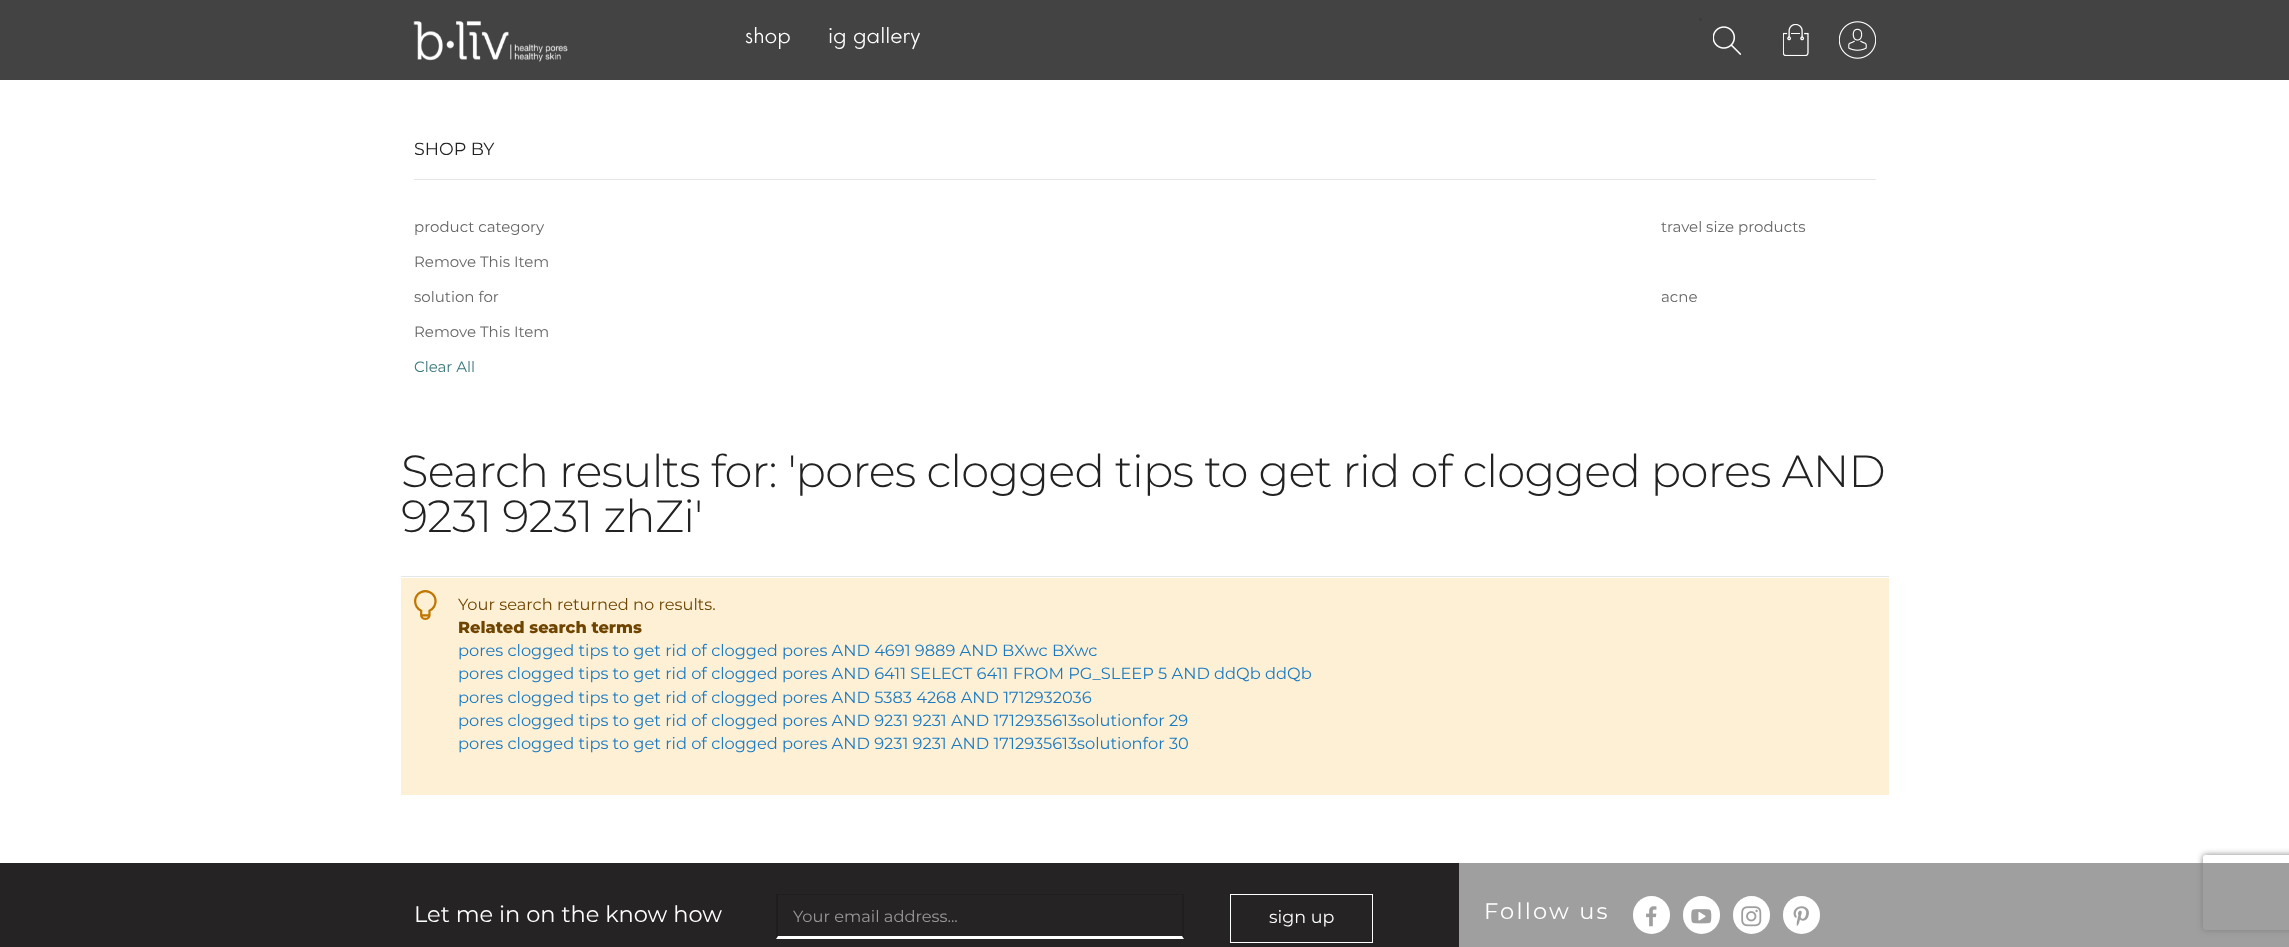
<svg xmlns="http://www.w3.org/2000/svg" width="2289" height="947">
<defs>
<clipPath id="clip1"><path d="M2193 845h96v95h-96zm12.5 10h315c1.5 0 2.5 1 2.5 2.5v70c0 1.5-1 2.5-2.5 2.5h-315c-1.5 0-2.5-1-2.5-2.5v-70c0-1.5 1-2.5 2.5-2.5z" clip-rule="evenodd"/></clipPath>
</defs>
<rect width="100%" height="100%" fill="#fff"/>
<rect width="2289" height="80" fill="#434343"/>
<image x="413" y="21" width="155" height="41" href="media/1.png"/>
<text x="745" y="43" style="font-family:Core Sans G;font-size:21.25px;font-weight:300;fill:#fff">shop</text>
<text x="828" y="43" style="font-family:Core Sans G;font-size:21.25px;font-weight:300;fill:#fff">ig gallery</text>
<circle cx="1700.5" cy="19.5" r="1.5" fill="#3c3c3c"/>
<image x="1713" y="26" width="28" height="29" href="media/2.png"/>
<image x="1783" y="24" width="26" height="32" href="media/3.png"/>
<image x="1839" y="21" width="37" height="38" href="media/4.png"/>
<rect x="414" y="179" width="1462" height="1" fill="#e6e6e6"/>
<text x="414" y="155" style="font-family:Montserrat;font-size:17.5px;fill:#222">SHOP BY</text>
<text x="414" y="232" style="font-family:Montserrat;font-size:15px;fill:#666">product category</text>
<text x="1661" y="232" style="font-family:Montserrat;font-size:15px;fill:#666">travel size products</text>
<text x="414" y="267" style="font-family:Montserrat;font-size:15px;fill:#666">Remove This Item</text>
<text x="414" y="302" style="font-family:Montserrat;font-size:15px;fill:#666">solution for</text>
<text x="1661" y="302" style="font-family:Montserrat;font-size:15px;fill:#666">acne</text>
<text x="414" y="337" style="font-family:Montserrat;font-size:15px;fill:#666">Remove This Item</text>
<text x="414" y="372" style="font-family:Montserrat;font-size:15px;fill:#3b787b">Clear All</text>
<rect x="401" y="576" width="1488" height="1" fill="#e6e6e6"/>
<text x="401" y="487" style="font-family:Montserrat;font-size:45px;font-weight:300;letter-spacing:-0.75px;fill:#222">Search results for: 'pores clogged tips to get rid of clogged pores AND</text>
<text x="401" y="532" style="font-family:Montserrat;font-size:45px;font-weight:300;letter-spacing:-0.75px;fill:#222">9231 9231 zhZi'</text>
<rect x="401" y="578" width="1488" height="217" fill="#fdf0d5"/>
<text x="414" y="620" style="font-family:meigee;font-size:30px;fill:#c07600">\</text>
<text x="458" y="610" style="font-family:Montserrat;font-size:16.25px;fill:#6f4400">Your search returned no results.</text>
<text x="458" y="633" style="font-family:Montserrat;font-size:16.25px;font-weight:800;fill:#6f4400">Related search terms</text>
<text x="458" y="656" style="font-family:Montserrat;font-size:16.25px;fill:#1979c3">pores clogged tips to get rid of clogged pores AND 4691 9889 AND BXwc BXwc</text>
<text x="458" y="679" style="font-family:Montserrat;font-size:16.25px;fill:#1979c3">pores clogged tips to get rid of clogged pores AND 6411 SELECT 6411 FROM PG_SLEEP 5 AND ddQb ddQb</text>
<text x="458" y="703" style="font-family:Montserrat;font-size:16.25px;fill:#1979c3">pores clogged tips to get rid of clogged pores AND 5383 4268 AND 1712932036</text>
<text x="458" y="726" style="font-family:Montserrat;font-size:16.25px;fill:#1979c3">pores clogged tips to get rid of clogged pores AND 9231 9231 AND 1712935613solutionfor 29</text>
<text x="458" y="749" style="font-family:Montserrat;font-size:16.25px;fill:#1979c3">pores clogged tips to get rid of clogged pores AND 9231 9231 AND 1712935613solutionfor 30</text>
<rect y="863" width="1459" height="84" fill="#262324"/>
<text x="414" y="922" style="font-family:Montserrat;font-size:22.5px;fill:#fff">Let me in on the know how</text>
<path d="M776 894h408l-2 1h-404z" fill="#201e1f"/>
<path d="M1184 894v45l-2-3v-41z" fill="#201e1f"/>
<path d="M1184 939h-408l2-3h404z" fill="#fff"/>
<path d="M776 939v-45l2 1v41z" fill="#00000026"/>
<text x="793" y="922" style="font-family:Montserrat;font-size:16.25px;fill:#999">Your email address...</text>
<rect x="1230.5" y="894.5" width="142" height="48" fill="none" stroke="#fff"/>
<text x="1269" y="923" style="font-family:Montserrat;font-size:17.5px;fill:#fff">sign up</text>
<rect x="1459" y="863" width="830" height="84" fill="#9f9f9f"/>
<g clip-path="url(#clip1)">
<rect x="2203" y="855" width="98" height="75" rx="2.5" fill="#808080" filter="blur(3px)"/>
</g>
<text x="1484" y="919" style="font-family:Montserrat;font-size:22.5px;letter-spacing:2.25px;fill:#fff">Follow us</text>
<rect x="1633" y="896" width="37" height="38" rx="18.5" fill="#fff"/>
<image x="1646" y="906" width="11" height="21" href="media/5.png"/>
<rect x="1683" y="896" width="37" height="38" rx="18.5" fill="#fff"/>
<image x="1691" y="909" width="21" height="15" href="media/6.png"/>
<rect x="1733" y="896" width="37" height="38" rx="18.5" fill="#fff"/>
<image x="1741" y="906" width="21" height="21" href="media/7.png"/>
<rect x="1783" y="896" width="37" height="38" rx="18.5" fill="#fff"/>
<image x="1793" y="906" width="16" height="21" href="media/8.png"/>
</svg>
